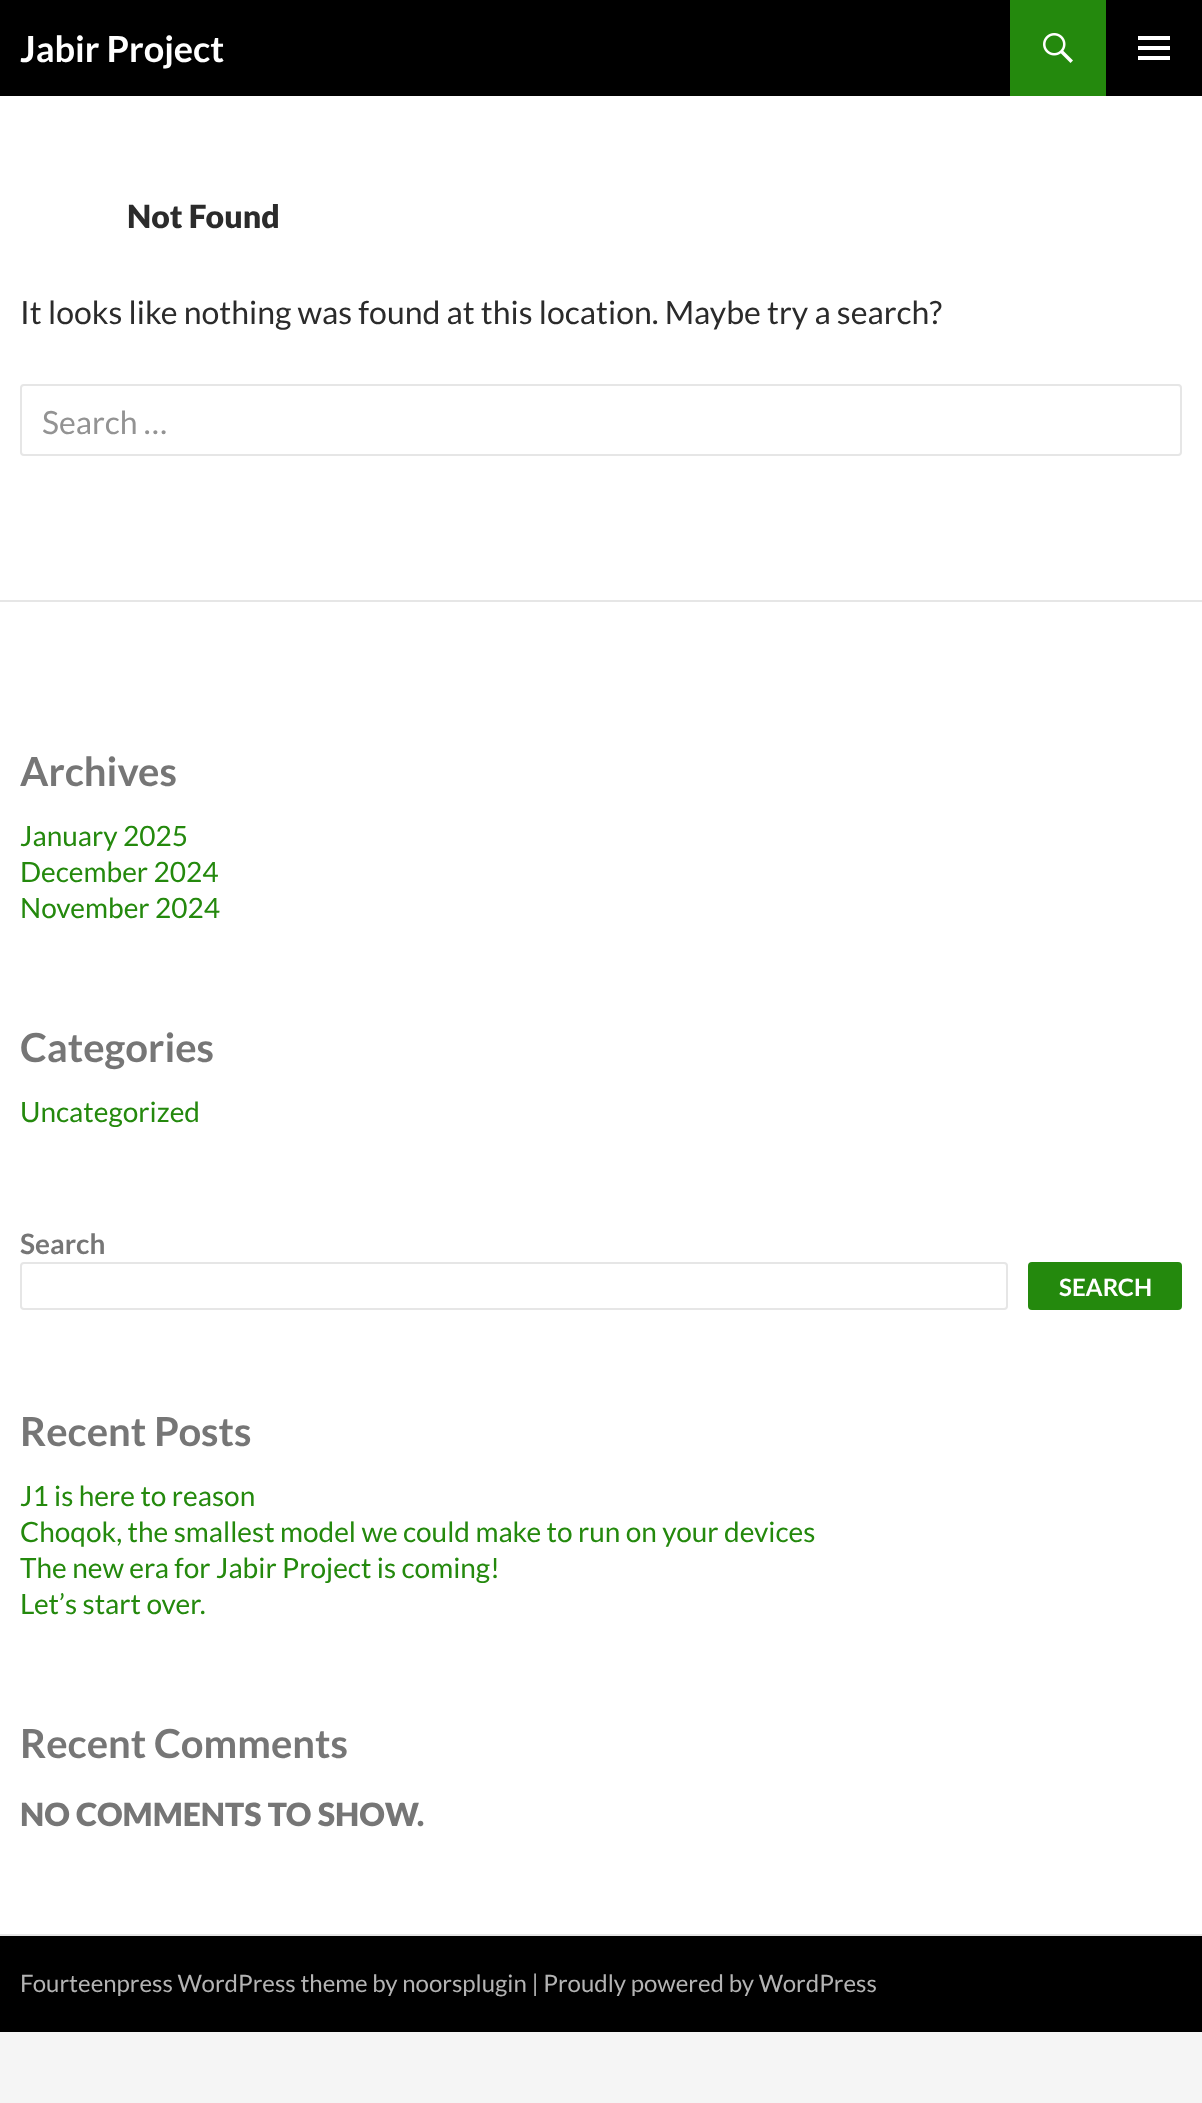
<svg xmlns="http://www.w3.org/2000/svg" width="1202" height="2103">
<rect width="100%" height="100%" fill="#f5f5f5"/>
<rect y="96" width="1202" height="1838" fill="#fff"/>
<rect width="1202" height="96" fill="#000"/>
<text x="20" y="62" style="font-family:Lato;font-size:36px;font-weight:bold;fill:#fff">Jabir Project</text>
<rect x="1010" width="96" height="96" fill="#24890d"/>
<image x="1043" y="33" width="30" height="30" href="media/1.png"/>
<image x="1138" y="36" width="32" height="24" href="media/2.png"/>
<text x="127" y="228" style="font-family:Lato;font-size:32px;font-weight:900;fill:#2b2b2b">Not Found</text>
<text x="20" y="324" style="font-family:Lato;font-size:32px;fill:#2b2b2b">It looks like nothing was found at this location. Maybe try a search?</text>
<rect x="21" y="385" width="1160" height="70" rx="3" fill="none" stroke="#e6e6e6" stroke-width="2"/>
<text x="42" y="434" style="font-family:Lato;font-size:32px;fill:#939393">Search …</text>
<rect y="600" width="1202" height="2" fill="#e6e6e6"/>
<rect y="1934" width="1202" height="2" fill="#e6e6e6"/>
<text x="20" y="786" style="font-family:Lato;font-size:40px;font-weight:bold;fill:#767676">Archives</text>
<text x="20" y="846" style="font-family:Lato;font-size:28px;fill:#24890d">January 2025</text>
<text x="20" y="882" style="font-family:Lato;font-size:28px;fill:#24890d">December 2024</text>
<text x="20" y="918" style="font-family:Lato;font-size:28px;fill:#24890d">November 2024</text>
<text x="20" y="1062" style="font-family:Lato;font-size:40px;font-weight:bold;fill:#767676">Categories</text>
<text x="20" y="1122" style="font-family:Lato;font-size:28px;fill:#24890d">Uncategorized</text>
<text x="20" y="1254" style="font-family:Lato;font-size:28px;font-weight:bold;fill:#767676">Search</text>
<rect x="21" y="1263" width="986" height="46" rx="3" fill="none" stroke="#e6e6e6" stroke-width="2"/>
<rect x="1028" y="1262" width="154" height="48" rx="4" fill="#24890d"/>
<text x="1059" y="1296" style="font-family:Lato;font-size:24px;font-weight:bold;fill:#fff">SEARCH</text>
<text x="20" y="1446" style="font-family:Lato;font-size:40px;font-weight:bold;fill:#767676">Recent Posts</text>
<text x="20" y="1506" style="font-family:Lato;font-size:28px;fill:#24890d">J1 is here to reason</text>
<text x="20" y="1542" style="font-family:Lato;font-size:28px;fill:#24890d">Choqok, the smallest model we could make to run on your devices</text>
<text x="20" y="1578" style="font-family:Lato;font-size:28px;fill:#24890d">The new era for Jabir Project is coming!</text>
<text x="20" y="1614" style="font-family:Lato;font-size:28px;fill:#24890d">Let’s start over.</text>
<text x="20" y="1758" style="font-family:Lato;font-size:40px;font-weight:bold;fill:#767676">Recent Comments</text>
<text x="20" y="1826" style="font-family:Lato;font-size:32px;font-weight:900;fill:#767676">NO COMMENTS TO SHOW.</text>
<rect y="1936" width="1202" height="96" fill="#000"/>
<text x="20" y="1992" style="font-family:Lato;font-size:24px;fill:#b3b3b3">Fourteenpress WordPress theme by noorsplugin | Proudly powered by WordPress</text>
</svg>
